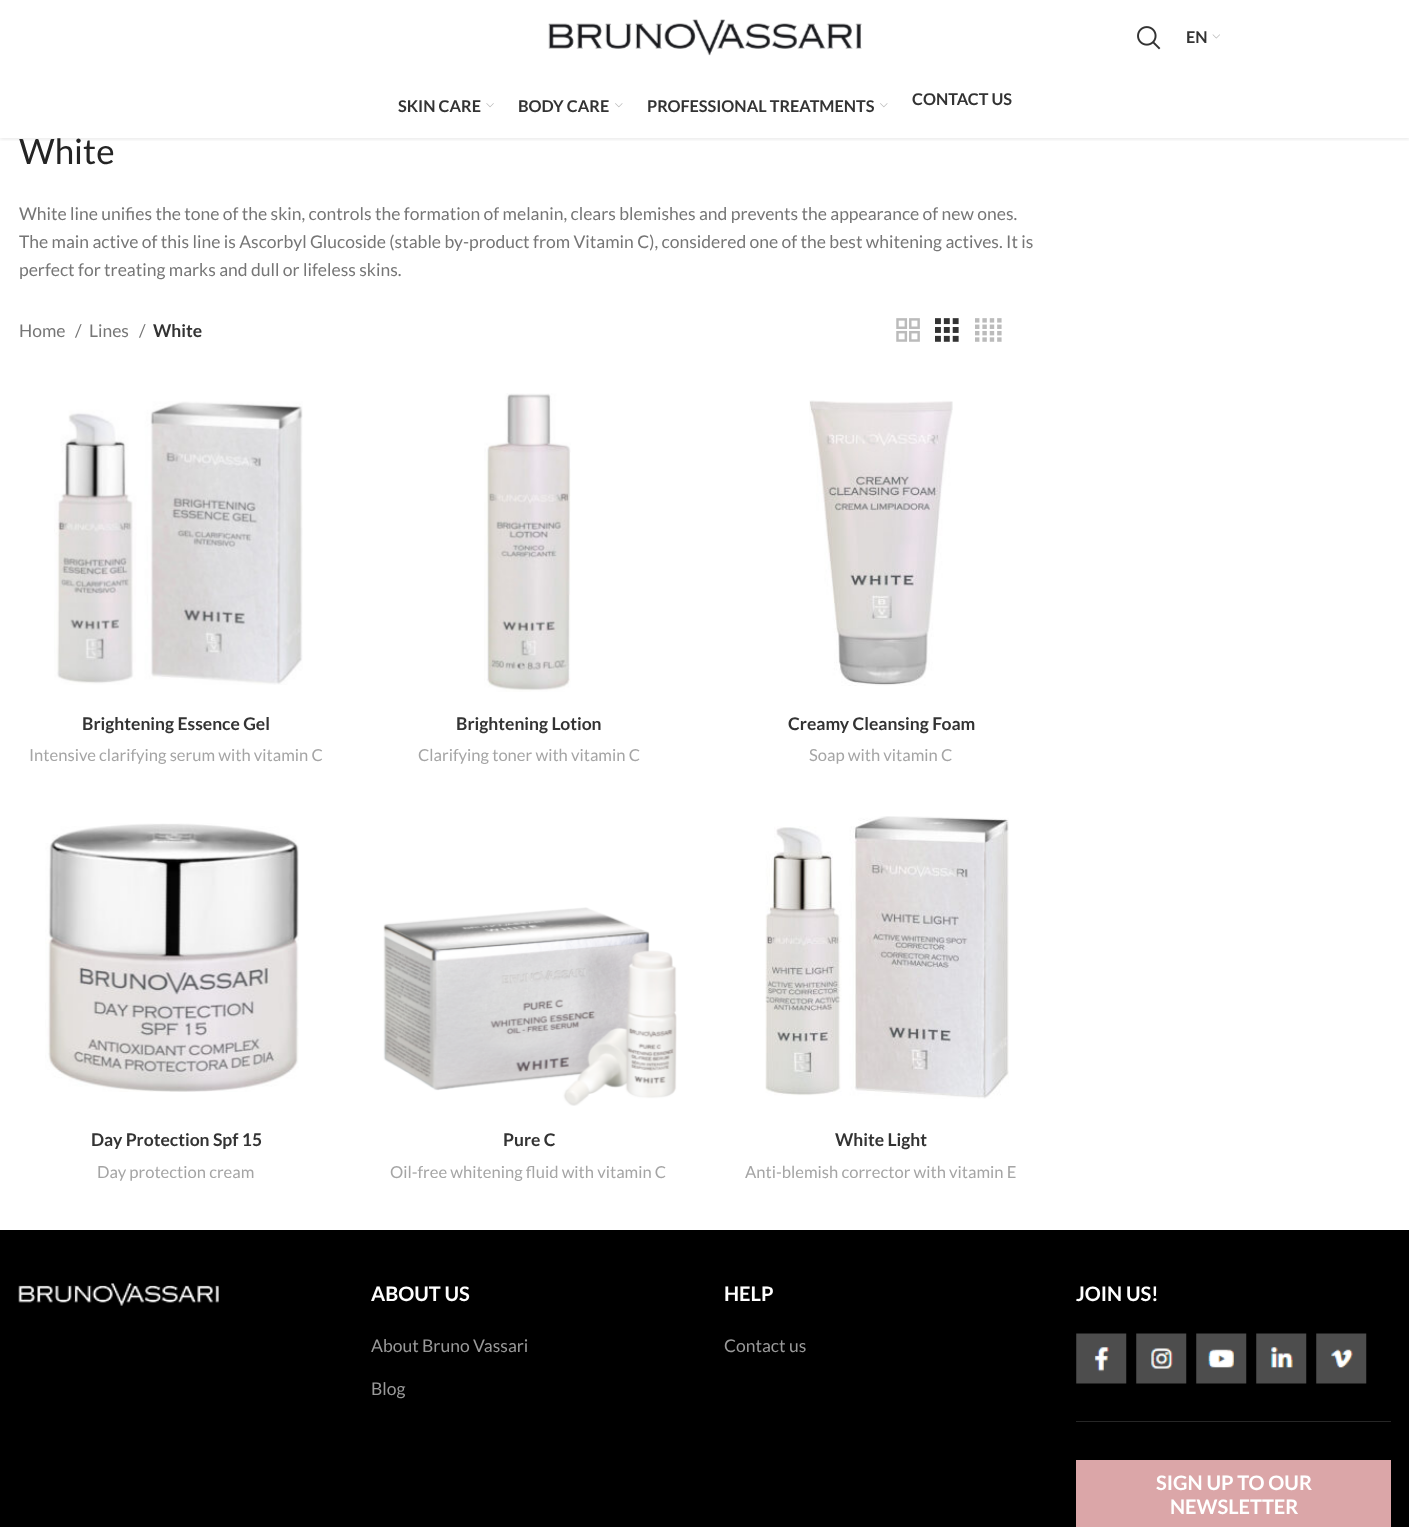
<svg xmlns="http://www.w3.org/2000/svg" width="1409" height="1527">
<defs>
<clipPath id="clip1"><rect x="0" y="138" width="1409" height="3"/></clipPath>
</defs>
<rect width="100%" height="100%" fill="#fff"/>
<g clip-path="url(#clip1)">
<rect y="1" width="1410" height="138" fill="#0000001a" filter="blur(2px)"/>
</g>
<image x="548" y="19" width="314" height="37" href="media/1.png"/>
<image x="1137" y="26" width="24" height="24" href="media/2.png"/>
<text x="1186" y="43" style="font-family:Lato;font-size:16.25px;font-weight:bold;fill:#333">EN</text>
<image x="1212" y="34" width="8" height="5" href="media/3.png"/>
<rect y="137" width="1409" height="1" fill="#fff"/>
<text x="398" y="112" style="font-family:Lato;font-size:16.25px;font-weight:bold;fill:#333">SKIN CARE</text>
<image x="486" y="103" width="8" height="5" href="media/4.png"/>
<text x="518" y="112" style="font-family:Lato;font-size:16.25px;font-weight:bold;fill:#333">BODY CARE</text>
<image x="615" y="103" width="8" height="5" href="media/5.png"/>
<text x="647" y="112" style="font-family:Lato;font-size:16.25px;font-weight:bold;fill:#333">PROFESSIONAL TREATMENTS</text>
<image x="880" y="103" width="8" height="5" href="media/5.png"/>
<text x="912" y="105" style="font-family:Lato;font-size:16.25px;font-weight:bold;fill:#333">CONTACT US</text>
<text x="19" y="164" style="font-family:Lato;font-size:35px;fill:#242424">White</text>
<text x="19" y="220" style="font-family:Lato;font-size:17.5px;fill:#767676">White line unifies the tone of the skin, controls the formation of melanin, clears blemishes and prevents the appearance of new ones.</text>
<text x="19" y="248" style="font-family:Lato;font-size:17.5px;fill:#767676">The main active of this line is Ascorbyl Glucoside (stable by-product from Vitamin C), considered one of the best whitening actives. It is</text>
<text x="19" y="276" style="font-family:Lato;font-size:17.5px;fill:#767676">perfect for treating marks and dull or lifeless skins.</text>
<text x="19" y="337" style="font-family:Lato;font-size:17.5px;fill:#767676">Home</text>
<text x="75" y="337" style="font-family:Lato;font-size:17.5px;fill:#767676">/</text>
<text x="89" y="337" style="font-family:Lato;font-size:17.5px;fill:#767676">Lines</text>
<text x="139" y="337" style="font-family:Lato;font-size:17.5px;fill:#767676">/</text>
<text x="153" y="337" style="font-family:Lato;font-size:17.5px;font-weight:bold;fill:#333">White</text>
<image x="896" y="318" width="24" height="24" href="media/6.png"/>
<image x="935" y="318" width="24" height="24" href="media/7.png"/>
<image x="975" y="318" width="27" height="24" href="media/8.png"/>
<image x="54" y="401" width="249" height="284" href="media/9.png"/>
<text x="82" y="730" style="font-family:Lato;font-size:17.5px;font-weight:bold;fill:#333">Brightening Essence Gel</text>
<text x="29" y="761" style="font-family:Lato;font-size:16.6px;fill:#a5a5a5">Intensive clarifying serum with vitamin C</text>
<image x="484" y="393" width="87" height="299" href="media/10.png"/>
<text x="456" y="730" style="font-family:Lato;font-size:17.5px;font-weight:bold;fill:#333">Brightening Lotion</text>
<text x="418" y="761" style="font-family:Lato;font-size:16.6px;fill:#a5a5a5">Clarifying toner with vitamin C</text>
<image x="809" y="400" width="144" height="286" href="media/11.png"/>
<text x="788" y="730" style="font-family:Lato;font-size:17.5px;font-weight:bold;fill:#333">Creamy Cleansing Foam</text>
<text x="809" y="761" style="font-family:Lato;font-size:16.6px;fill:#a5a5a5">Soap with vitamin C</text>
<image x="45" y="823" width="254" height="269" href="media/12.png"/>
<text x="91" y="1146" style="font-family:Lato;font-size:17.5px;font-weight:bold;fill:#333">Day Protection Spf 15</text>
<text x="97" y="1178" style="font-family:Lato;font-size:16.6px;fill:#a5a5a5">Day protection cream</text>
<image x="383" y="907" width="294" height="199" href="media/13.png"/>
<text x="503" y="1146" style="font-family:Lato;font-size:17.5px;font-weight:bold;fill:#333">Pure C</text>
<text x="390" y="1178" style="font-family:Lato;font-size:16.6px;fill:#a5a5a5">Oil-free whitening fluid with vitamin C</text>
<image x="765" y="816" width="244" height="283" href="media/14.png"/>
<text x="835" y="1146" style="font-family:Lato;font-size:17.5px;font-weight:bold;fill:#333">White Light</text>
<text x="745" y="1178" style="font-family:Lato;font-size:16.6px;fill:#a5a5a5">Anti-blemish corrector with vitamin E</text>
<rect y="1230" width="1409" height="297" fill="#000"/>
<image x="18" y="1283" width="201" height="23" href="media/15.png"/>
<text x="371" y="1301" style="font-family:Lato;font-size:20px;font-weight:bold;fill:#fff">ABOUT US</text>
<text x="371" y="1352" style="font-family:Lato;font-size:17.5px;fill:#999">About Bruno Vassari</text>
<text x="371" y="1395" style="font-family:Lato;font-size:17.5px;fill:#999">Blog</text>
<text x="724" y="1301" style="font-family:Lato;font-size:20px;font-weight:bold;fill:#fff">HELP</text>
<text x="724" y="1352" style="font-family:Lato;font-size:17.5px;fill:#999">Contact us</text>
<rect x="1076" y="1421" width="315" height="1" fill="#262626"/>
<text x="1076" y="1301" style="font-family:Lato;font-size:20px;font-weight:bold;fill:#fff">JOIN US!</text>
<image x="1076" y="1333" width="51" height="51" href="media/16.png"/>
<image x="1136" y="1333" width="51" height="51" href="media/17.png"/>
<image x="1196" y="1333" width="51" height="51" href="media/18.png"/>
<image x="1256" y="1333" width="51" height="51" href="media/19.png"/>
<image x="1316" y="1333" width="51" height="51" href="media/20.png"/>
<rect x="1076" y="1460" width="315" height="67" fill="#dba6a8"/>
<text x="1156" y="1490" style="font-family:Lato;font-size:20px;font-weight:bold;fill:#fff">SIGN UP TO OUR</text>
<text x="1170" y="1514" style="font-family:Lato;font-size:20px;font-weight:bold;fill:#fff">NEWSLETTER</text>
</svg>
